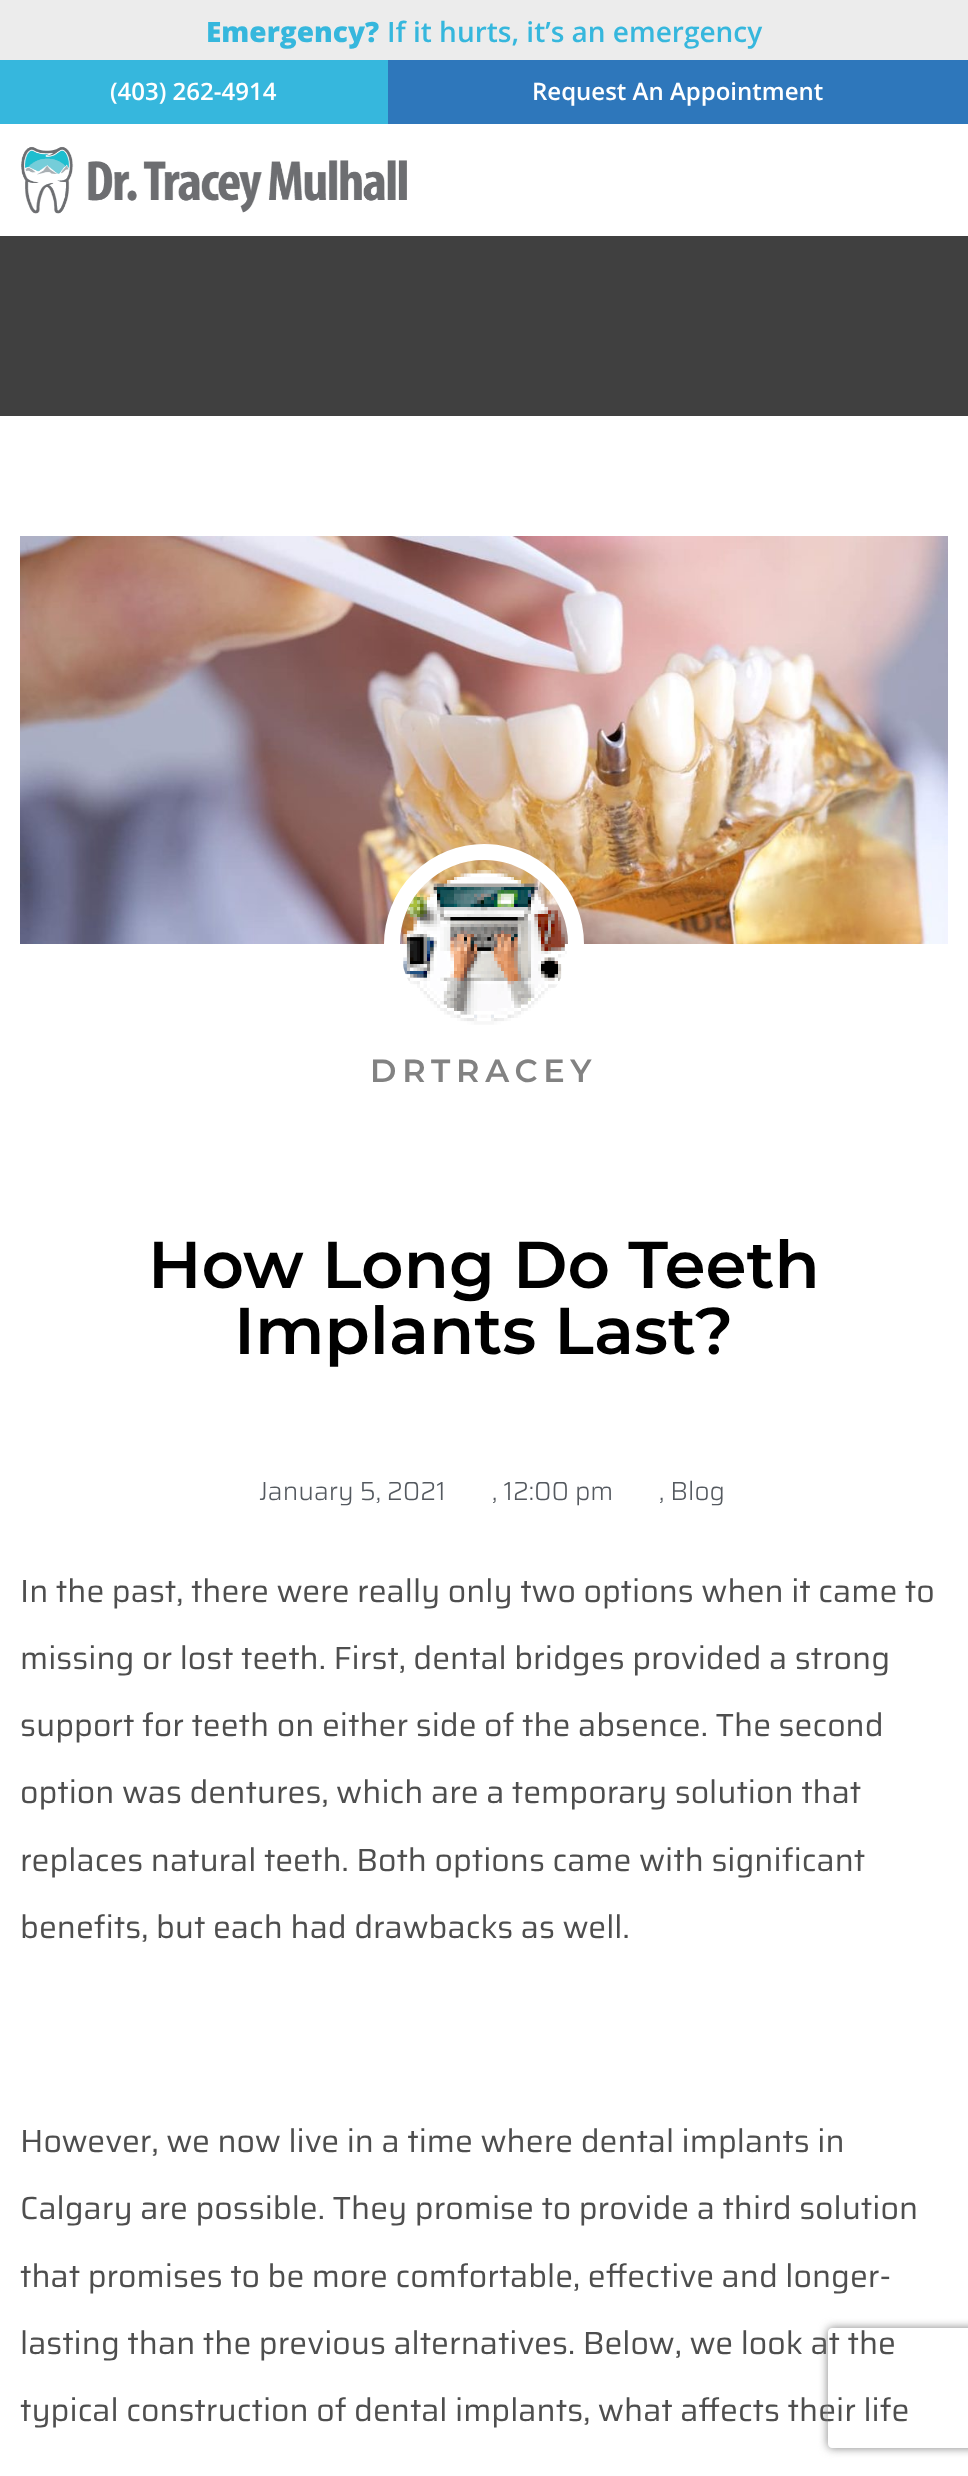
<svg xmlns="http://www.w3.org/2000/svg" width="968" height="2476">
<defs>
<clipPath id="clip1"><path d="M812 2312h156v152h-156zm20 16h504c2 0 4 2 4 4v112c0 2-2 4-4 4h-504c-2 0-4-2-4-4v-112c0-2 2-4 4-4z" clip-rule="evenodd"/></clipPath>
</defs>
<rect width="100%" height="100%" fill="#fff"/>
<rect width="968" height="60" fill="#ececec"/>
<text x="206" y="42" style="font-family:Open Sans;font-size:28px;font-weight:800;fill:#36b7dd">Emergency?</text>
<text x="387" y="42" style="font-family:Open Sans;font-size:28px;font-weight:600;fill:#36b7dd">If it hurts, it’s an emergency</text>
<rect y="60" width="388" height="64" fill="#36b7dd"/>
<text x="110" y="100" style="font-family:Open Sans;font-size:24px;font-weight:600;fill:#fff">(403) 262-4914</text>
<rect x="388" y="60" width="580" height="64" fill="#2e77bb"/>
<text x="532" y="100" style="font-family:Open Sans;font-size:24px;font-weight:600;fill:#fff">Request An Appointment</text>
<image x="21" y="146" width="386" height="68" href="media/1.png"/>
<rect y="236" width="968" height="180" fill="#404040"/>
<image x="20" y="536" width="928" height="408" href="media/2.png"/>
<circle cx="484" cy="944" r="92" fill="none" stroke="#fff" stroke-width="16"/>
<image x="403" y="870" width="164" height="155" href="media/3.png"/>
<text x="370" y="1082" style="font-family:Montserrat;font-size:32px;font-weight:600;letter-spacing:5.75px;fill:#828282">DRTRACEY</text>
<text x="148" y="1288" style="font-family:Montserrat;font-size:66px;font-weight:600;fill:#000">How Long Do Teeth</text>
<text x="234" y="1354" style="font-family:Montserrat;font-size:66px;font-weight:600;fill:#000">Implants Last?</text>
<text x="259" y="1500" style="font-family:Saira;font-size:26px;font-weight:300;fill:#54595f">January 5, 2021</text>
<text x="492" y="1500" style="font-family:Saira;font-size:26px;font-weight:300;fill:#54595f">, 12:00 pm</text>
<text x="659" y="1500" style="font-family:Saira;font-size:26px;font-weight:300;fill:#54595f">, Blog</text>
<text x="20" y="1602" style="font-family:Saira;font-size:32px;fill:#4e4e4e">In the past, there were really only two options when it came to</text>
<text x="20" y="1669" style="font-family:Saira;font-size:32px;fill:#4e4e4e">missing or lost teeth. First, dental bridges provided a strong</text>
<text x="20" y="1736" style="font-family:Saira;font-size:32px;fill:#4e4e4e">support for teeth on either side of the absence. The second</text>
<text x="20" y="1803" style="font-family:Saira;font-size:32px;fill:#4e4e4e">option was dentures, which are a temporary solution that</text>
<text x="20" y="1871" style="font-family:Saira;font-size:32px;fill:#4e4e4e">replaces natural teeth. Both options came with significant</text>
<text x="20" y="1938" style="font-family:Saira;font-size:32px;fill:#4e4e4e">benefits, but each had drawbacks as well.</text>
<text x="20" y="2152" style="font-family:Saira;font-size:32px;fill:#4e4e4e">However, we now live in a time where dental implants in</text>
<text x="20" y="2219" style="font-family:Saira;font-size:32px;fill:#4e4e4e">Calgary are possible. They promise to provide a third solution</text>
<text x="20" y="2287" style="font-family:Saira;font-size:32px;fill:#4e4e4e">that promises to be more comfortable, effective and longer-</text>
<text x="20" y="2354" style="font-family:Saira;font-size:32px;fill:#4e4e4e">lasting than the previous alternatives. Below, we look at the</text>
<text x="20" y="2421" style="font-family:Saira;font-size:32px;fill:#4e4e4e">typical construction of dental implants, what affects their life</text>
<g clip-path="url(#clip1)">
<rect x="828" y="2328" width="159" height="120" rx="4" fill="#808080" filter="blur(5px)"/>
</g>
</svg>
